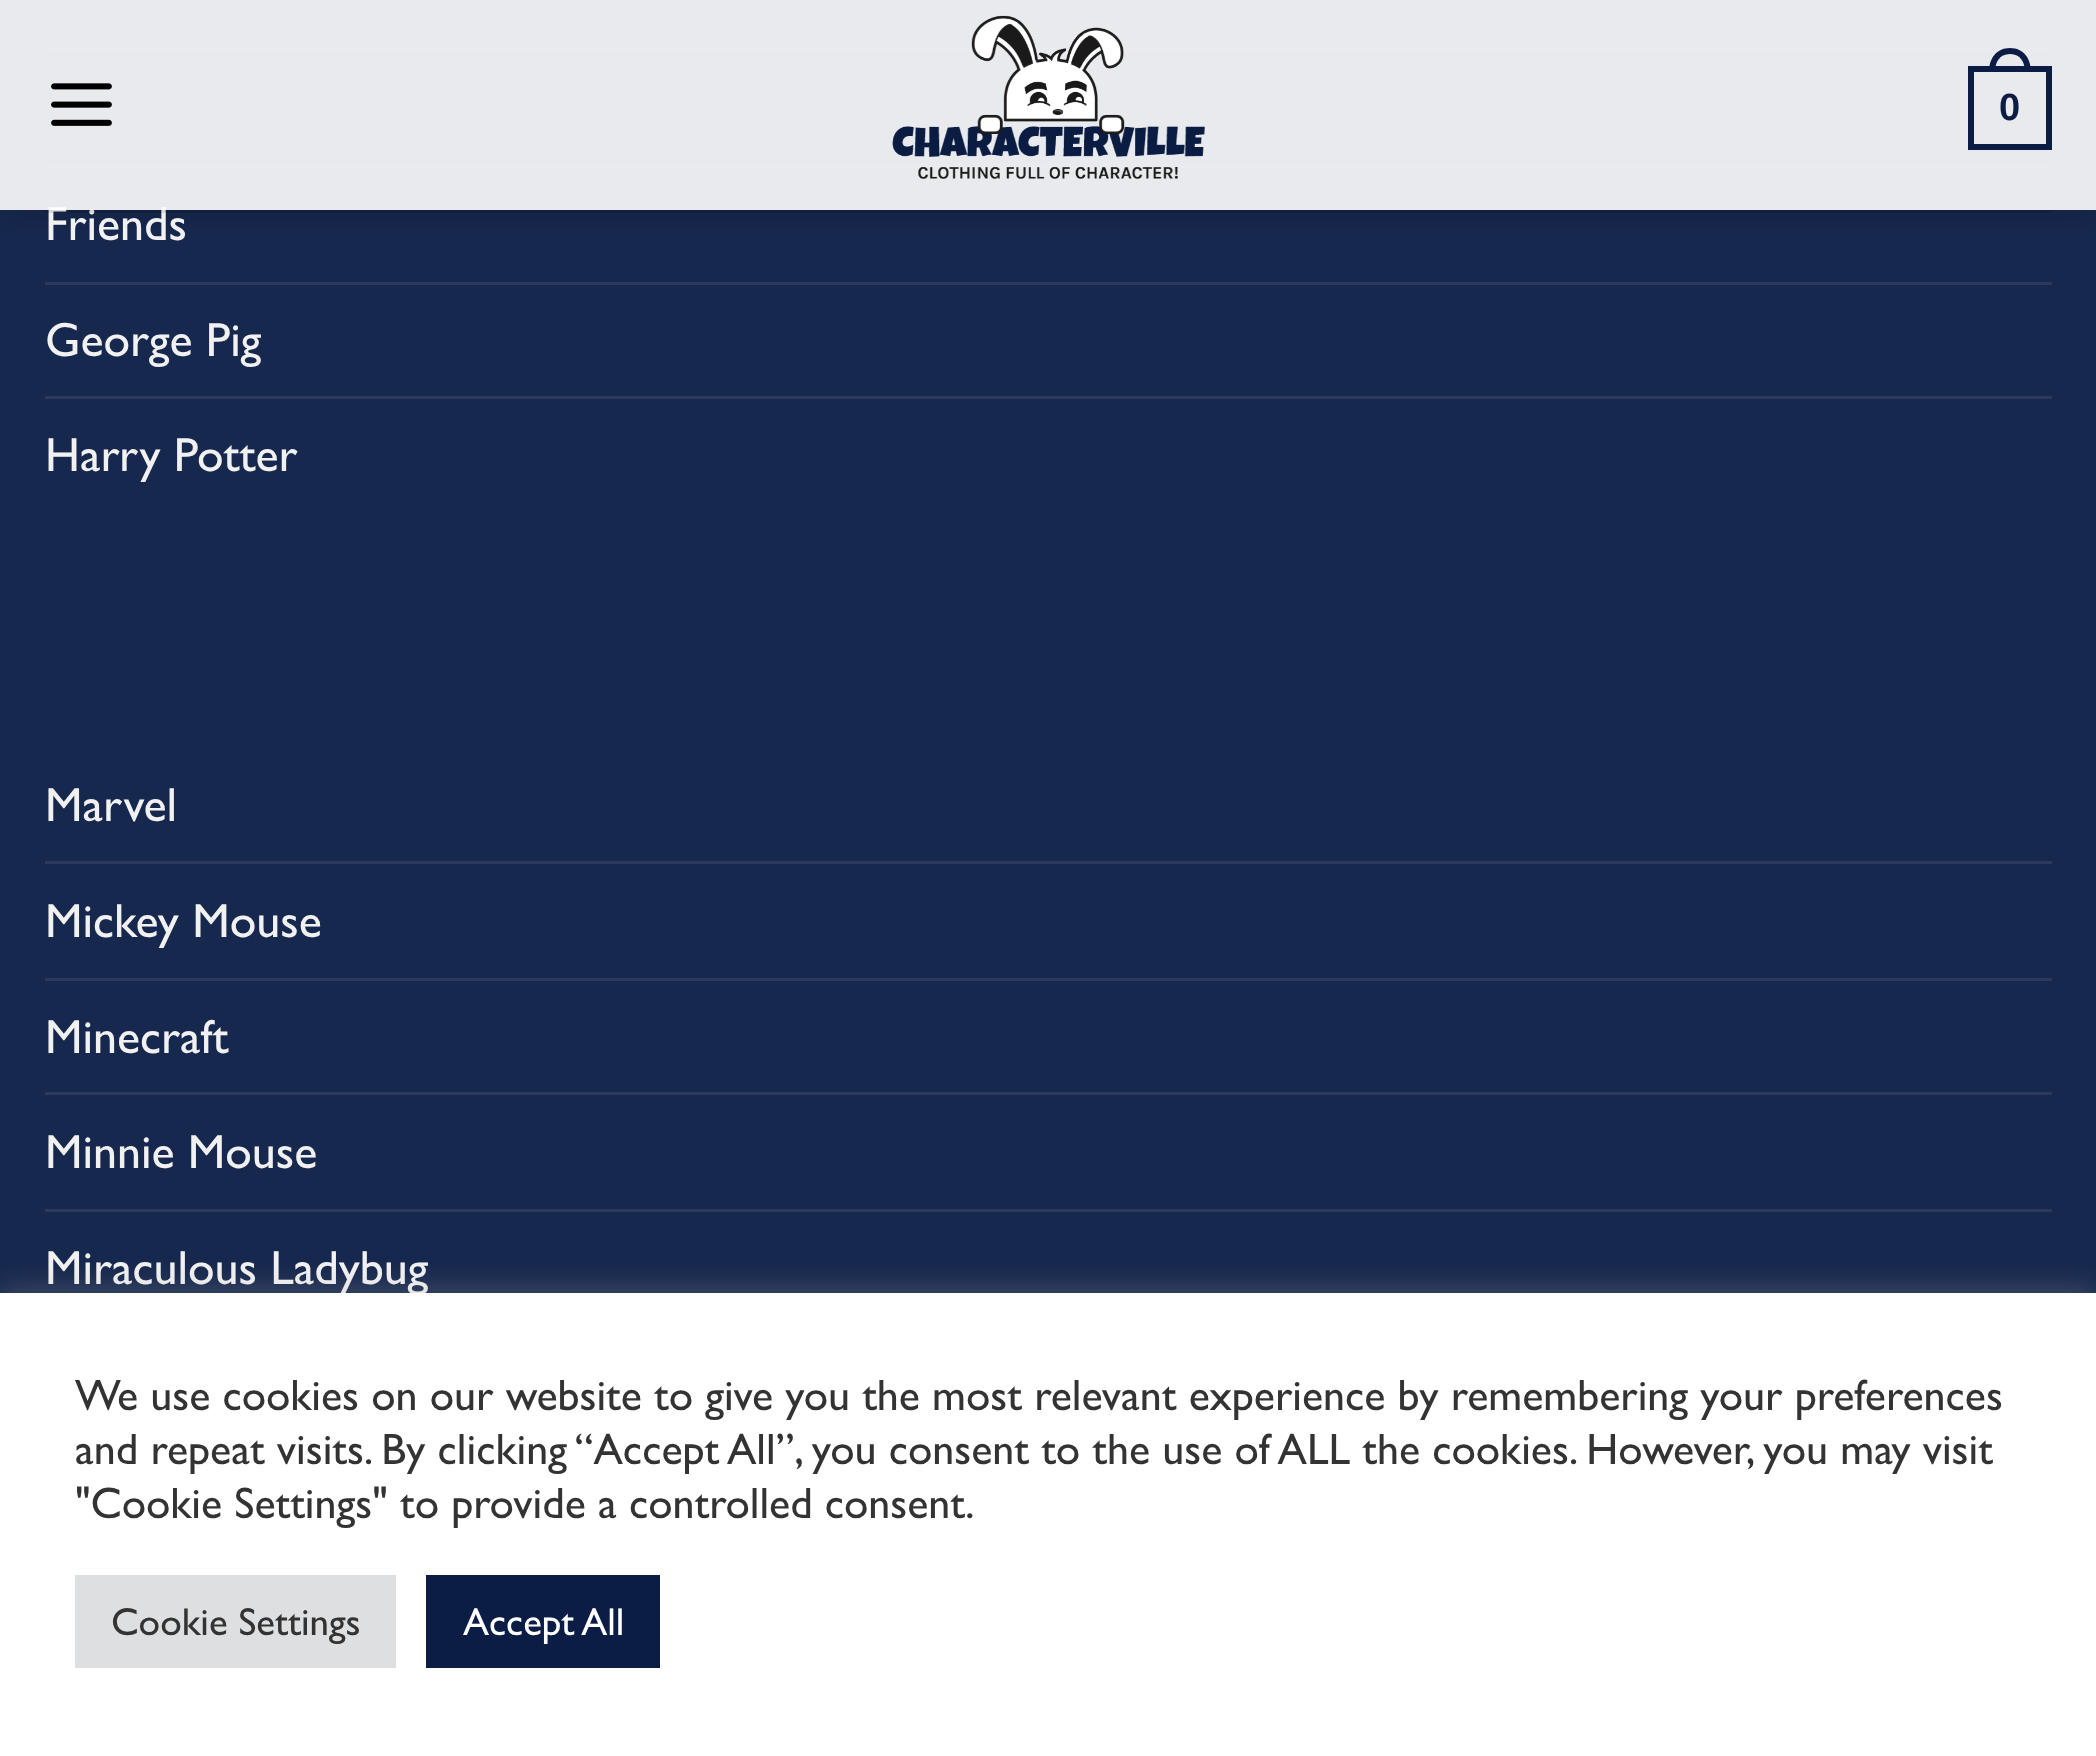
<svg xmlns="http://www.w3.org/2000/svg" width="2096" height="1756">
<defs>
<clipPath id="clip1"><rect x="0" y="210" width="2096" height="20"/></clipPath>
</defs>
<rect width="100%" height="100%" fill="#17284e"/>
<rect x="45" y="48" width="2007" height="3" fill="#2a395c"/>
<rect x="45" y="165" width="2007" height="3" fill="#2a395c"/>
<g clip-path="url(#clip1)">
<rect x="3" y="3" width="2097" height="210" fill="#00000026" filter="blur(15px)"/>
</g>
<text x="45" y="240" style="font-family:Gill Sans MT;font-size:48px;fill:#f1f1f1">Friends</text>
<rect width="2096" height="210" fill="#ffffffe6"/>
<image x="51" y="83" width="61" height="43" href="media/1.png"/>
<image x="892" y="15" width="313" height="164" href="media/2.png"/>
<rect x="1971" y="69" width="78" height="78" fill="none" stroke="#0b1d45" stroke-width="6"/>
<path d="M2010 48c14 0 21 11 21 24h-42c0-13 7-24 21-24zm0 6c11 0 15 9 15 18h-30c0-9 4-18 15-18z" fill="#0b1d45" fill-rule="evenodd"/>
<text x="1999" y="120" style="font-family:Liberation Sans;font-size:38px;font-weight:bold;fill:#0b1d45">0</text>
<rect x="45" y="210" width="2007" height="3" fill="#0000001a"/>
<rect x="45" y="282" width="2007" height="3" fill="#2a395c"/>
<text x="45" y="356" style="font-family:Gill Sans MT;font-size:48px;fill:#f1f1f1">George Pig</text>
<rect x="45" y="396" width="2007" height="3" fill="#2a395c"/>
<text x="45" y="471" style="font-family:Gill Sans MT;font-size:48px;fill:#f1f1f1">Harry Potter</text>
<text x="45" y="821" style="font-family:Gill Sans MT;font-size:48px;fill:#f1f1f1">Marvel</text>
<rect x="45" y="861" width="2007" height="3" fill="#2a395c"/>
<text x="45" y="937" style="font-family:Gill Sans MT;font-size:48px;fill:#f1f1f1">Mickey Mouse</text>
<rect x="45" y="978" width="2007" height="3" fill="#2a395c"/>
<text x="45" y="1053" style="font-family:Gill Sans MT;font-size:48px;fill:#f1f1f1">Minecraft</text>
<rect x="45" y="1092" width="2007" height="3" fill="#2a395c"/>
<text x="45" y="1168" style="font-family:Gill Sans MT;font-size:48px;fill:#f1f1f1">Minnie Mouse</text>
<rect x="45" y="1209" width="2007" height="3" fill="#2a395c"/>
<text x="45" y="1284" style="font-family:Gill Sans MT;font-size:48px;fill:#f1f1f1">Miraculous Ladybug</text>
<rect y="1290" width="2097" height="465" fill="#acabab4d" filter="blur(15px)"/>
<rect y="1293" width="2096" height="463" fill="#fff"/>
<text x="75" y="1410" style="font-family:Gill Sans MT;font-size:44px;fill:#333">We use cookies on our website to give you the most relevant experience by remembering your preferences</text>
<text x="75" y="1464" style="font-family:Gill Sans MT;font-size:44px;fill:#333">and repeat visits. By clicking “Accept All”, you consent to the use of ALL the cookies. However, you may visit</text>
<text x="75" y="1518" style="font-family:Gill Sans MT;font-size:44px;fill:#333">"Cookie Settings" to provide a controlled consent.</text>
<rect x="75" y="1575" width="321" height="93" fill="#dedfe0"/>
<text x="111" y="1635" style="font-family:Gill Sans MT;font-size:39px;fill:#333">Cookie Settings</text>
<rect x="426" y="1575" width="234" height="93" fill="#0b1d45"/>
<text x="463" y="1635" style="font-family:Gill Sans MT;font-size:39px;fill:#fff">Accept All</text>
</svg>
